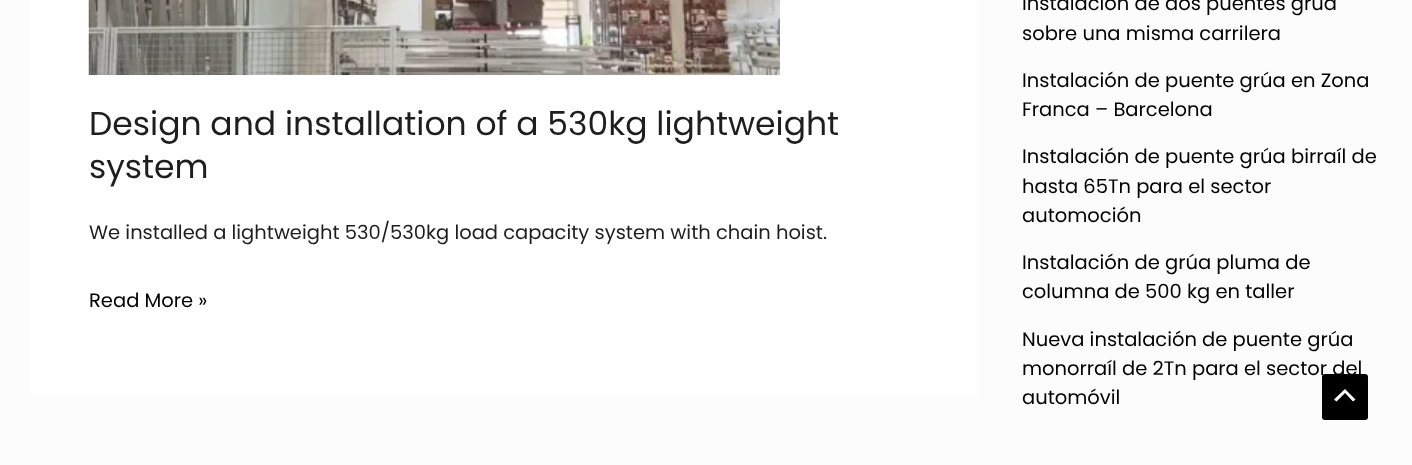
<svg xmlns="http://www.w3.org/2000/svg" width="1412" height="465">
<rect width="100%" height="100%" fill="#fcfcfc"/>
<rect x="30" width="947" height="395" fill="#fff"/>
<image x="88" y="0" width="692" height="75" href="media/1.png"/>
<text x="89" y="135" style="font-family:Poppins;font-size:33px;fill:#1e1e1e">Design and installation of a 530kg lightweight</text>
<text x="89" y="178" style="font-family:Poppins;font-size:33px;fill:#1e1e1e">system</text>
<text x="89" y="239" style="font-family:Poppins;font-size:19.5px;fill:#1e1e1e">We installed a lightweight 530/530kg load capacity system with chain hoist.</text>
<text x="89" y="307" style="font-family:Poppins;font-size:19.5px;fill:#000">Read More »</text>
<text x="1022" y="10" style="font-family:Poppins;font-size:19.5px;fill:#000">Instalación de dos puentes grúa</text>
<text x="1022" y="40" style="font-family:Poppins;font-size:19.5px;fill:#000">sobre una misma carrilera</text>
<text x="1022" y="87" style="font-family:Poppins;font-size:19.5px;fill:#000">Instalación de puente grúa en Zona</text>
<text x="1022" y="116" style="font-family:Poppins;font-size:19.5px;fill:#000">Franca – Barcelona</text>
<text x="1022" y="163" style="font-family:Poppins;font-size:19.5px;fill:#000">Instalación de puente grúa birraíl de</text>
<text x="1022" y="193" style="font-family:Poppins;font-size:19.5px;fill:#000">hasta 65Tn para el sector</text>
<text x="1022" y="222" style="font-family:Poppins;font-size:19.5px;fill:#000">automoción</text>
<text x="1022" y="269" style="font-family:Poppins;font-size:19.5px;fill:#000">Instalación de grúa pluma de</text>
<text x="1022" y="298" style="font-family:Poppins;font-size:19.5px;fill:#000">columna de 500 kg en taller</text>
<text x="1022" y="346" style="font-family:Poppins;font-size:19.5px;fill:#000">Nueva instalación de puente grúa</text>
<text x="1022" y="375" style="font-family:Poppins;font-size:19.5px;fill:#000">monorraíl de 2Tn para el sector del</text>
<text x="1022" y="404" style="font-family:Poppins;font-size:19.5px;fill:#000">automóvil</text>
<rect x="1322" y="374" width="46" height="46" rx="3" fill="#000"/>
<path d="M1355.5 399.5l-10.5-10.5l-11 10.5l2.5 2l8.5-8.5l8 8.5z" fill="#fff"/>
</svg>
